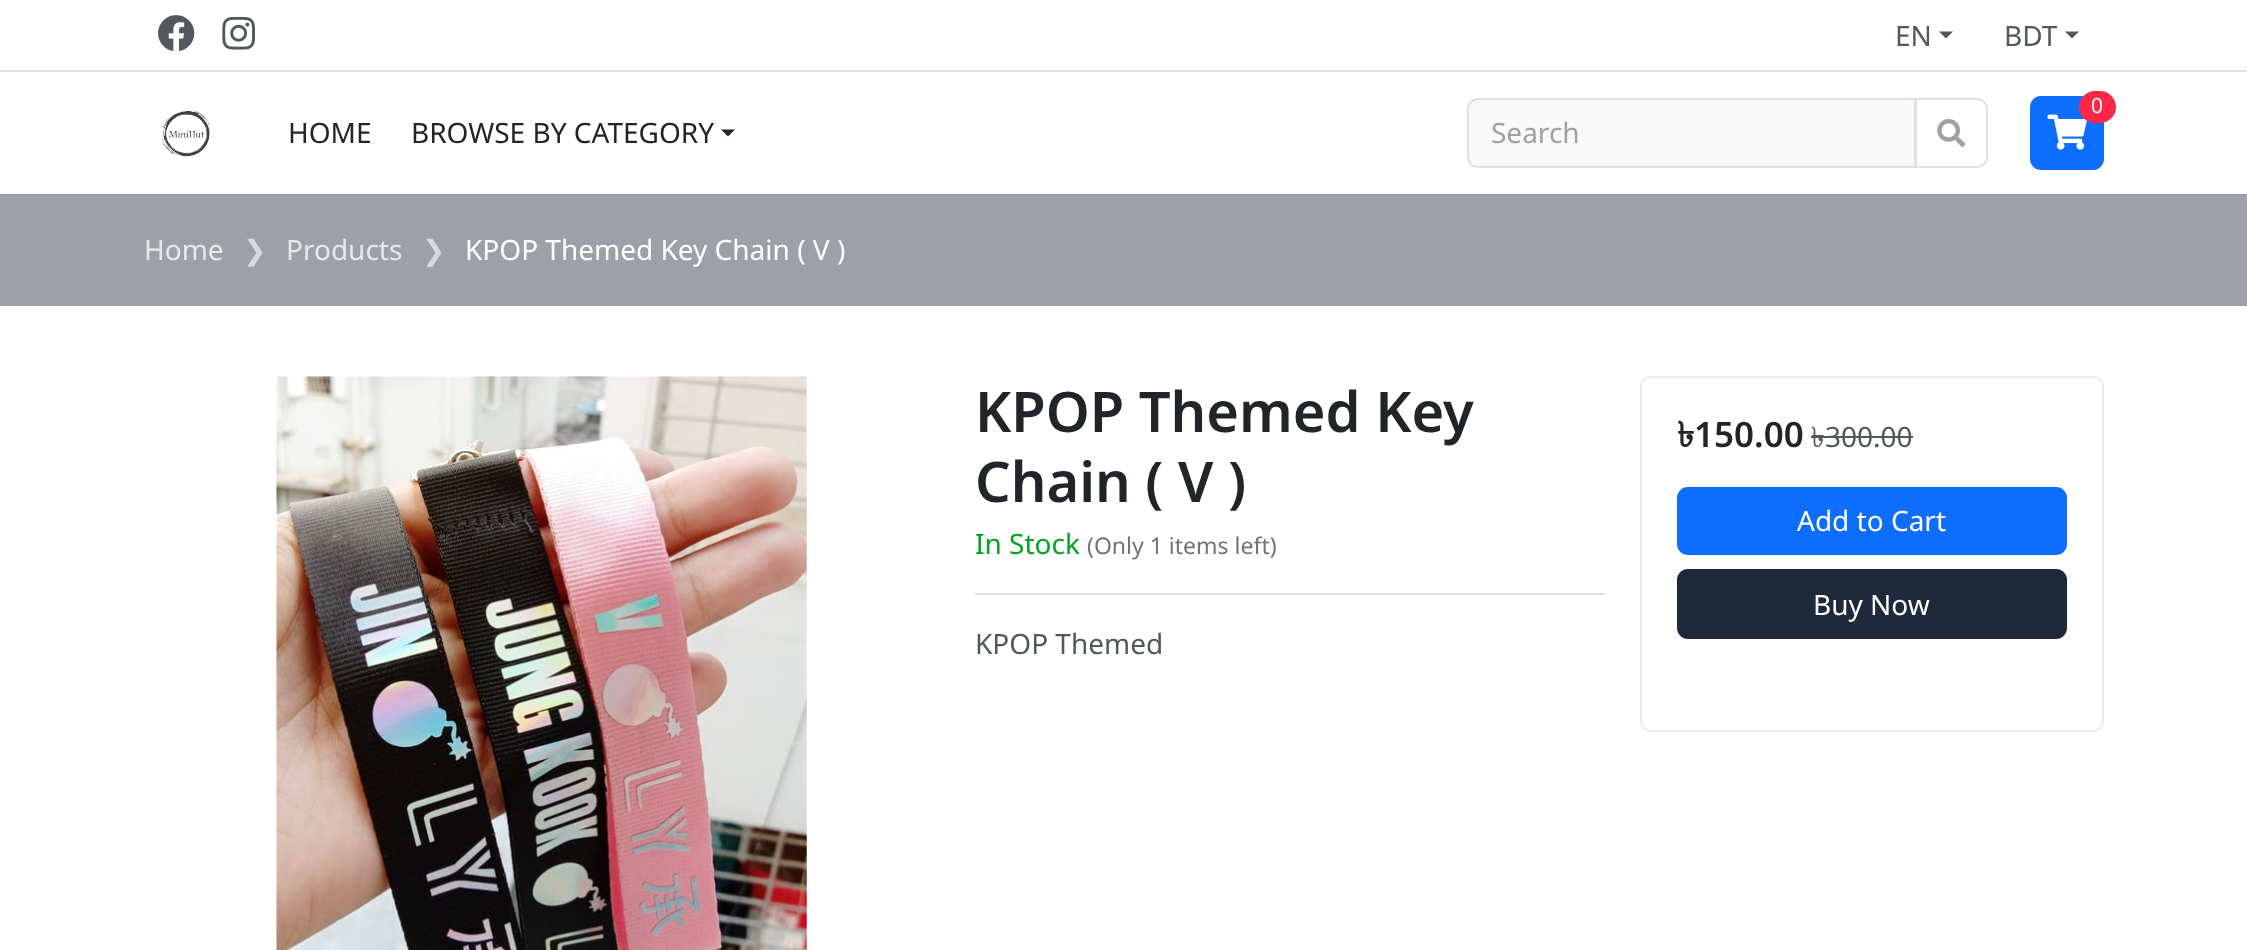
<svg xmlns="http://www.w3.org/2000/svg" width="2247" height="950">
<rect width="100%" height="100%" fill="#fff"/>
<rect y="70" width="2247" height="2" fill="#dee2e6"/>
<image x="158" y="15" width="37" height="37" href="media/1.png"/>
<image x="222" y="16" width="33" height="34" href="media/2.png"/>
<text x="1895" y="46" style="font-family:Noto Sans;font-size:28px;fill:#51585e">EN</text>
<path d="M1939 31.5h14l-7 7z" fill="#51585e"/>
<text x="2004" y="46" style="font-family:Noto Sans;font-size:28px;fill:#51585e">BDT</text>
<path d="M2065 31.5h14l-7 7z" fill="#51585e"/>
<image x="162" y="110" width="48" height="47" href="media/3.png"/>
<rect x="2030" y="96" width="74" height="74" rx="11" fill="#0d6efd"/>
<image x="2047" y="114" width="40" height="36" href="media/4.png"/>
<rect x="2079" y="91" width="37" height="32" rx="16" fill="#ff2748"/>
<text x="2091" y="113" style="font-family:Noto Sans;font-size:21px;fill:#fff">0</text>
<text x="288" y="143" style="font-family:Noto Sans;font-size:28px;fill:#212529">HOME</text>
<text x="411" y="143" style="font-family:Noto Sans;font-size:28px;fill:#212529">BROWSE BY CATEGORY</text>
<path d="M721 129.5h14l-7 7z" fill="#212529"/>
<path d="M1478 99h437v68h-437c-5.5 0-10-4.5-10-10v-48c0-5.5 4.5-10 10-10z" fill="#f9f9f9" stroke="#dee2e6" stroke-width="2"/>
<text x="1491" y="143" style="font-family:Noto Sans;font-size:28px;fill:#9da1a7">Search</text>
<path d="M1916 99h61c5.5 0 10 4.5 10 10v48c0 5.5-4.5 10-10 10h-61z" fill="#fff" stroke="#dee2e6" stroke-width="2"/>
<image x="1937" y="119" width="29" height="28" href="media/5.png"/>
<rect y="194" width="2247" height="112" fill="#9da1a7"/>
<text x="144" y="260" style="font-family:Noto Sans;font-size:28px;fill:#e7e8e9">Home</text>
<text x="243" y="260" style="font-family:DejaVu Sans;font-size:28px;fill:#d8d9dc">❯</text>
<text x="286" y="260" style="font-family:Noto Sans;font-size:28px;fill:#e7e8e9">Products</text>
<text x="422" y="260" style="font-family:DejaVu Sans;font-size:28px;fill:#d8d9dc">❯</text>
<text x="465" y="260" style="font-family:Noto Sans;font-size:28px;fill:#fff">KPOP Themed Key Chain ( V )</text>
<image x="276" y="376" width="531" height="574" href="media/6.png"/>
<text x="975" y="432" style="font-family:Noto Sans;font-size:56px;font-weight:600;fill:#212529">KPOP Themed Key</text>
<text x="975" y="502" style="font-family:Noto Sans;font-size:56px;font-weight:600;fill:#212529">Chain ( V )</text>
<text x="975" y="554" style="font-family:Noto Sans;font-size:28px;fill:#00a524">In Stock</text>
<text x="1087" y="554" style="font-family:Noto Sans;font-size:23px;fill:#6c757d">(Only 1 items left)</text>
<rect x="975" y="593" width="630" height="2" fill="#dcdedf"/>
<text x="975" y="654" style="font-family:Noto Sans;font-size:28px;fill:#51585e">KPOP Themed</text>
<rect x="1641" y="377" width="462" height="354" rx="10" fill="none" stroke="#eaebec" stroke-width="2"/>
<text x="1677" y="447" style="font-family:Lohit Bengali;font-size:35px;font-weight:bold;fill:#212529">৳</text>
<text x="1694" y="447" style="font-family:Noto Sans;font-size:35px;font-weight:600;fill:#212529">150.00</text>
<text x="1811" y="447" style="font-family:Lohit Bengali;font-size:28px;fill:#51585e">৳</text>
<rect x="1811" y="436" width="102" height="2" fill="#51585e"/>
<text x="1825" y="447" style="font-family:Noto Sans;font-size:28px;fill:#51585e">300.00</text>
<rect x="1678" y="488" width="388" height="66" rx="10" fill="#0d6efd" stroke="#0d6efd" stroke-width="2"/>
<text x="1797" y="531" style="font-family:Noto Sans;font-size:28px;fill:#fff">Add to Cart</text>
<rect x="1677" y="569" width="390" height="70" rx="11" fill="#1e293b"/>
<text x="1813" y="615" style="font-family:Noto Sans;font-size:28px;fill:#fff">Buy Now</text>
</svg>
